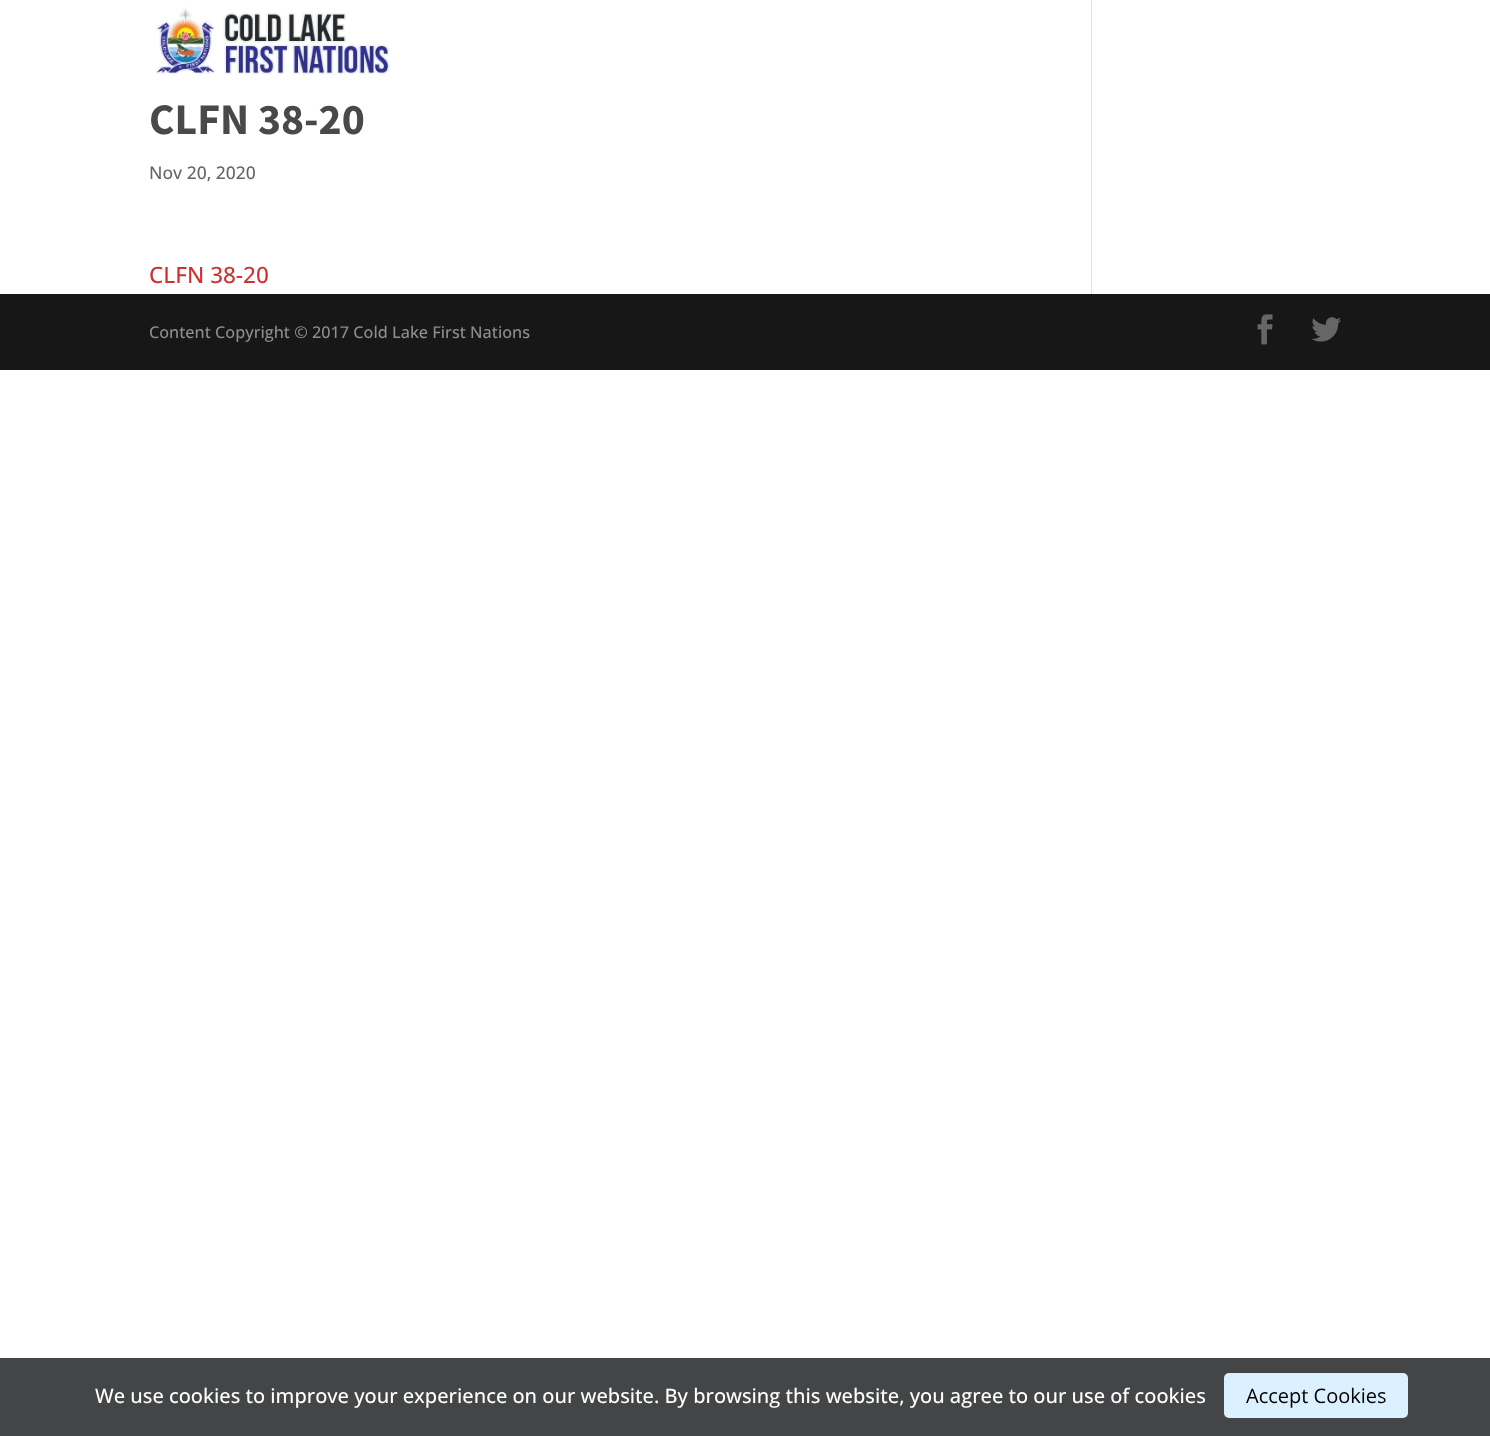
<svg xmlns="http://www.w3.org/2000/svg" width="1490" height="1436">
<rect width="100%" height="100%" fill="#fff"/>
<image x="156" y="7" width="234" height="68" href="media/1.png"/>
<text x="149" y="134" style="font-family:Source Sans Pro;font-size:43.75px;font-weight:bold;fill:#494949">CLFN 38-20</text>
<text x="149" y="179" style="font-family:Open Sans;font-size:17.5px;font-weight:500;fill:#666">Nov 20, 2020</text>
<text x="149" y="283" style="font-family:Open Sans;font-size:22.5px;font-weight:500;fill:#d23030">CLFN 38-20</text>
<rect x="1091" width="1" height="294" fill="#e2e2e2"/>
<rect y="294" width="1490" height="76" fill="#171717"/>
<text x="149" y="338" style="font-family:Open Sans;font-size:16.25px;font-weight:500;fill:#8e8e8e">Content Copyright © 2017 Cold Lake First Nations</text>
<image x="1257" y="314" width="16" height="31" href="media/2.png"/>
<image x="1311" y="317" width="30" height="25" href="media/3.png"/>
<rect y="1358" width="1490" height="78" fill="#444546"/>
<text x="95" y="1403" style="font-family:Open Sans;font-size:20px;font-weight:500;fill:#fff">We use cookies to improve your experience on our website. By browsing this website, you agree to our use of cookies</text>
<rect x="1224" y="1373" width="184" height="45" rx="5" fill="#dcf1ff"/>
<text x="1246" y="1403" style="font-family:Open Sans;font-size:20px;fill:#000">Accept Cookies</text>
</svg>
